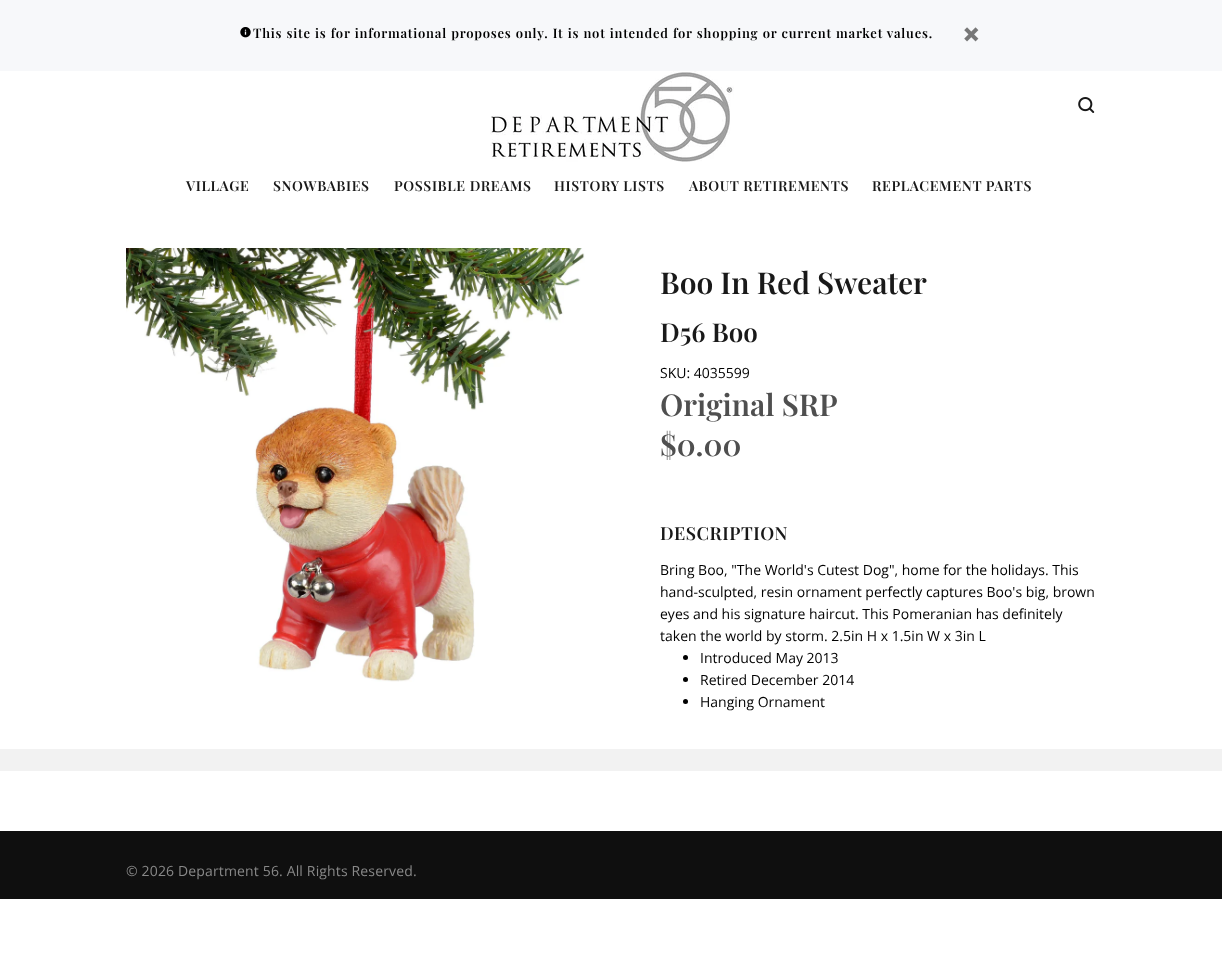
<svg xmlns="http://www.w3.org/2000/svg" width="1222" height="975">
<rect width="100%" height="100%" fill="#fff"/>
<rect width="1222" height="71" fill="#f7f8fa"/>
<image x="240" y="27" width="11" height="11" href="media/1.png"/>
<text x="253" y="38" word-spacing="0.4" style="font-family:Playfair Display;font-size:13px;font-weight:600;letter-spacing:0.78px;fill:#000">This site is for informational proposes only. It is not intended for shopping or current market values.</text>
<image x="964" y="27" width="15" height="15" href="media/2.png"/>
<image x="490" y="71" width="244" height="91" href="media/3.png"/>
<image x="1078" y="97" width="17" height="16" href="media/4.png"/>
<text x="186" y="191" style="font-family:Playfair Display;font-size:14px;font-weight:600;letter-spacing:0.6px;fill:#191919">VILLAGE</text>
<text x="273" y="191" style="font-family:Playfair Display;font-size:14px;font-weight:600;letter-spacing:0.6px;fill:#191919">SNOWBABIES</text>
<text x="394" y="191" style="font-family:Playfair Display;font-size:14px;font-weight:600;letter-spacing:0.6px;fill:#191919">POSSIBLE DREAMS</text>
<text x="554" y="191" style="font-family:Playfair Display;font-size:14px;font-weight:600;letter-spacing:0.6px;fill:#191919">HISTORY LISTS</text>
<text x="689" y="191" style="font-family:Playfair Display;font-size:14px;font-weight:600;letter-spacing:0.6px;fill:#191919">ABOUT RETIREMENTS</text>
<text x="872" y="191" style="font-family:Playfair Display;font-size:14px;font-weight:600;letter-spacing:0.6px;fill:#191919">REPLACEMENT PARTS</text>
<image x="126" y="248" width="459" height="434" href="media/5.png"/>
<text x="660" y="294" style="font-family:Playfair Display;font-size:30px;font-weight:600;fill:#191919">Boo In Red Sweater</text>
<text x="660" y="342" style="font-family:Playfair Display;font-size:26px;font-weight:600;fill:#191919">D56 Boo</text>
<text x="660" y="378" style="font-family:Open Sans;font-size:14px;fill:#000">SKU: 4035599</text>
<text x="660" y="416" style="font-family:Playfair Display;font-size:30px;font-weight:600;fill:#4f4f4f">Original SRP</text>
<text x="660" y="456" style="font-family:Playfair Display;font-size:30px;font-weight:600;fill:#4f4f4f">$0.00</text>
<text x="660" y="540" style="font-family:Playfair Display;font-size:18px;font-weight:600;letter-spacing:0.5px;fill:#191919">DESCRIPTION</text>
<text x="660" y="575" style="font-family:Open Sans;font-size:14px;fill:#000">Bring Boo, "The World's Cutest Dog", home for the holidays. This</text>
<text x="660" y="597" style="font-family:Open Sans;font-size:14px;fill:#000">hand-sculpted, resin ornament perfectly captures Boo's big, brown</text>
<text x="660" y="619" style="font-family:Open Sans;font-size:14px;fill:#000">eyes and his signature haircut. This Pomeranian has definitely</text>
<text x="660" y="641" style="font-family:Open Sans;font-size:14px;fill:#000">taken the world by storm. 2.5in H x 1.5in W x 3in L</text>
<circle cx="685.5" cy="657.5" r="2.5" fill="#000"/>
<text x="700" y="663" style="font-family:Open Sans;font-size:14px;fill:#000">Introduced May 2013</text>
<circle cx="685.5" cy="679.5" r="2.5" fill="#000"/>
<text x="700" y="685" style="font-family:Open Sans;font-size:14px;fill:#000">Retired December 2014</text>
<circle cx="685.5" cy="701.5" r="2.5" fill="#000"/>
<text x="700" y="707" style="font-family:Open Sans;font-size:14px;fill:#000">Hanging Ornament</text>
<rect y="749" width="1222" height="22" fill="#f2f2f2"/>
<rect y="831" width="1222" height="68" fill="#0f0f0f"/>
<text x="126" y="876" style="font-family:Open Sans;font-size:14px;letter-spacing:0.15px;fill:#888">© 2026 Department 56. All Rights Reserved.</text>
</svg>
